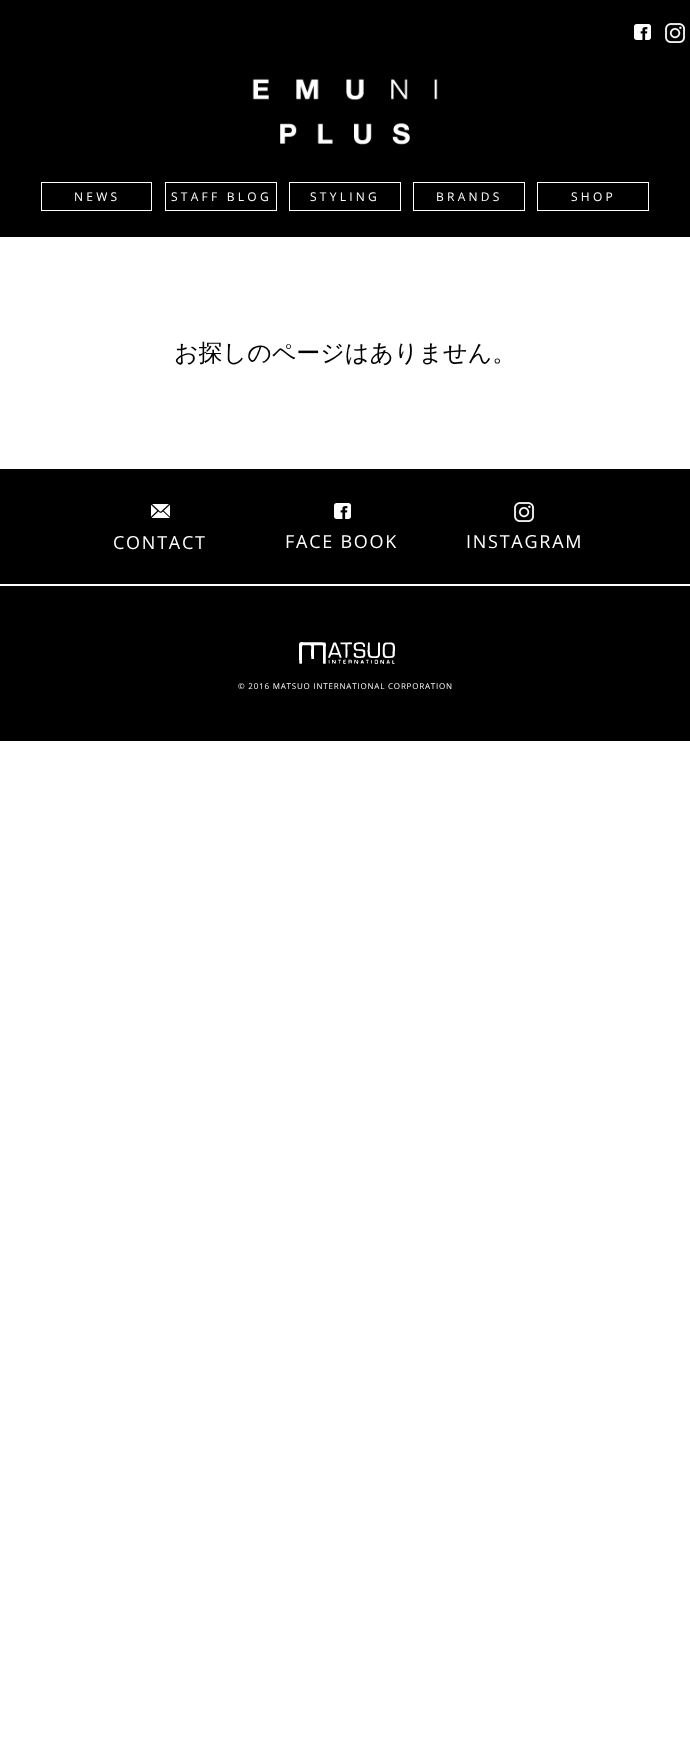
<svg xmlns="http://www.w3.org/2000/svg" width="690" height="1757">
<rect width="100%" height="100%" fill="#fff"/>
<rect width="690" height="237" fill="#000"/>
<image x="634" y="24" width="17" height="16" href="media/1.png"/>
<image x="665" y="23" width="20" height="20" href="media/2.png"/>
<image x="252" y="78" width="186" height="67" href="media/3.png"/>
<rect x="41.5" y="182.5" width="110" height="28" fill="none" stroke="#fff"/>
<text x="74" y="201" style="font-family:Open Sans;font-size:12px;letter-spacing:3.25px;fill:#fff">NEWS</text>
<rect x="165.5" y="182.5" width="111" height="28" fill="none" stroke="#fff"/>
<text x="171" y="201" style="font-family:Open Sans;font-size:12px;letter-spacing:3.25px;fill:#fff">STAFF BLOG</text>
<rect x="289.5" y="182.5" width="111" height="28" fill="none" stroke="#fff"/>
<text x="310" y="201" style="font-family:Open Sans;font-size:12px;letter-spacing:3.25px;fill:#fff">STYLING</text>
<rect x="413.5" y="182.5" width="111" height="28" fill="none" stroke="#fff"/>
<text x="436" y="201" style="font-family:Open Sans;font-size:12px;letter-spacing:3.25px;fill:#fff">BRANDS</text>
<rect x="537.5" y="182.5" width="111" height="28" fill="none" stroke="#fff"/>
<text x="571" y="201" style="font-family:Open Sans;font-size:12px;letter-spacing:3.25px;fill:#fff">SHOP</text>
<text x="174" y="361" style="font-family:WenQuanYi Zen Hei;font-size:24px;font-weight:500;fill:#000">お探しのページはありません。</text>
<rect y="469" width="690" height="272" fill="#000"/>
<image x="151" y="504" width="19" height="14" href="media/4.png"/>
<text x="113" y="549" style="font-family:Open Sans;font-size:18px;letter-spacing:1.75px;fill:#fff">CONTACT</text>
<image x="334" y="503" width="17" height="16" href="media/1.png"/>
<text x="285" y="548" style="font-family:Open Sans;font-size:18px;letter-spacing:1.75px;fill:#fff">FACE BOOK</text>
<image x="514" y="502" width="20" height="20" href="media/2.png"/>
<text x="466" y="548" style="font-family:Open Sans;font-size:18px;letter-spacing:1.75px;fill:#fff">INSTAGRAM</text>
<rect y="584" width="690" height="2" fill="#fff"/>
<image x="299" y="642" width="96" height="22" href="media/5.png"/>
<text x="238" y="689" style="font-family:Open Sans;font-size:8px;letter-spacing:0.8px;fill:#fff">© 2016 MATSUO INTERNATIONAL CORPORATION</text>
</svg>
